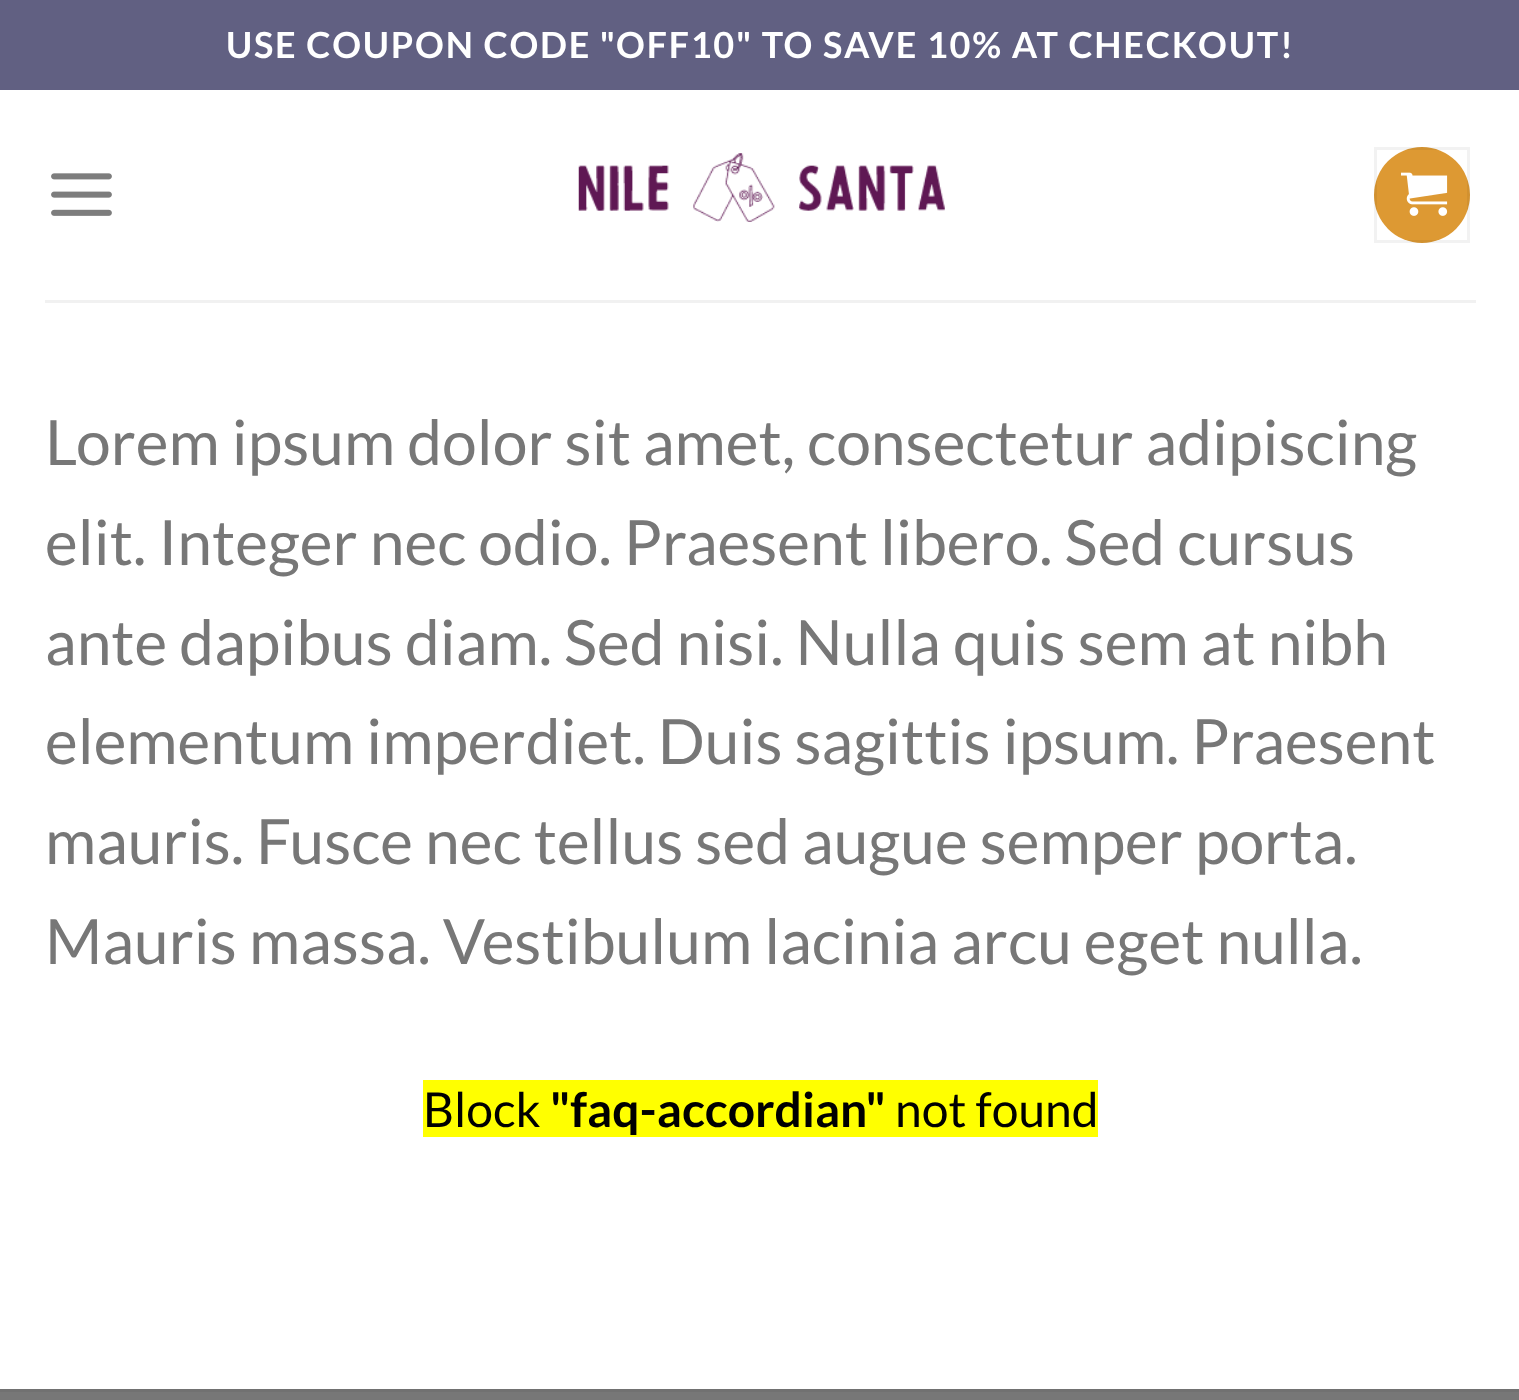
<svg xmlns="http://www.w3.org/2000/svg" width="1519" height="1400">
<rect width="100%" height="100%" fill="#fff"/>
<rect width="1519" height="90" fill="#616082"/>
<text x="226" y="58" style="font-family:Lato;font-size:36px;font-weight:bold;letter-spacing:1.8px;fill:#fff">USE COUPON CODE "OFF10" TO SAVE 10% AT CHECKOUT!</text>
<image x="51" y="173" width="61" height="43" href="media/1.png"/>
<image x="578" y="153" width="367" height="69" href="media/2.png"/>
<circle cx="1422" cy="195" r="48" fill="#d93"/>
<rect x="1375.5" y="148.5" width="93" height="93" fill="none" stroke="#0000000d" stroke-width="3"/>
<image x="1401" y="172" width="47" height="44" href="media/3.png"/>
<rect x="45" y="300" width="1431" height="3" fill="#f1f1f1"/>
<text x="45" y="465" style="font-family:Lato;font-size:62.4px;fill:#777">Lorem ipsum dolor sit amet, consectetur adipiscing</text>
<text x="45" y="565" style="font-family:Lato;font-size:62.4px;fill:#777">elit. Integer nec odio. Praesent libero. Sed cursus</text>
<text x="45" y="665" style="font-family:Lato;font-size:62.4px;fill:#777">ante dapibus diam. Sed nisi. Nulla quis sem at nibh</text>
<text x="45" y="764" style="font-family:Lato;font-size:62.4px;fill:#777">elementum imperdiet. Duis sagittis ipsum. Praesent</text>
<text x="45" y="864" style="font-family:Lato;font-size:62.4px;fill:#777">mauris. Fusce nec tellus sed augue semper porta.</text>
<text x="45" y="964" style="font-family:Lato;font-size:62.4px;fill:#777">Mauris massa. Vestibulum lacinia arcu eget nulla.</text>
<rect x="423" y="1080" width="675" height="57" fill="#ff0"/>
<text x="423" y="1127" style="font-family:Lato;font-size:48px;fill:#000">Block</text>
<text x="550" y="1127" style="font-family:Lato;font-size:48px;font-weight:bold;fill:#000">"faq-accordian"</text>
<text x="895" y="1127" style="font-family:Lato;font-size:48px;fill:#000">not found</text>
<rect y="1392" width="1519" height="8" fill="#777"/>
<rect y="1389" width="1519" height="3" fill="#717171"/>
</svg>
